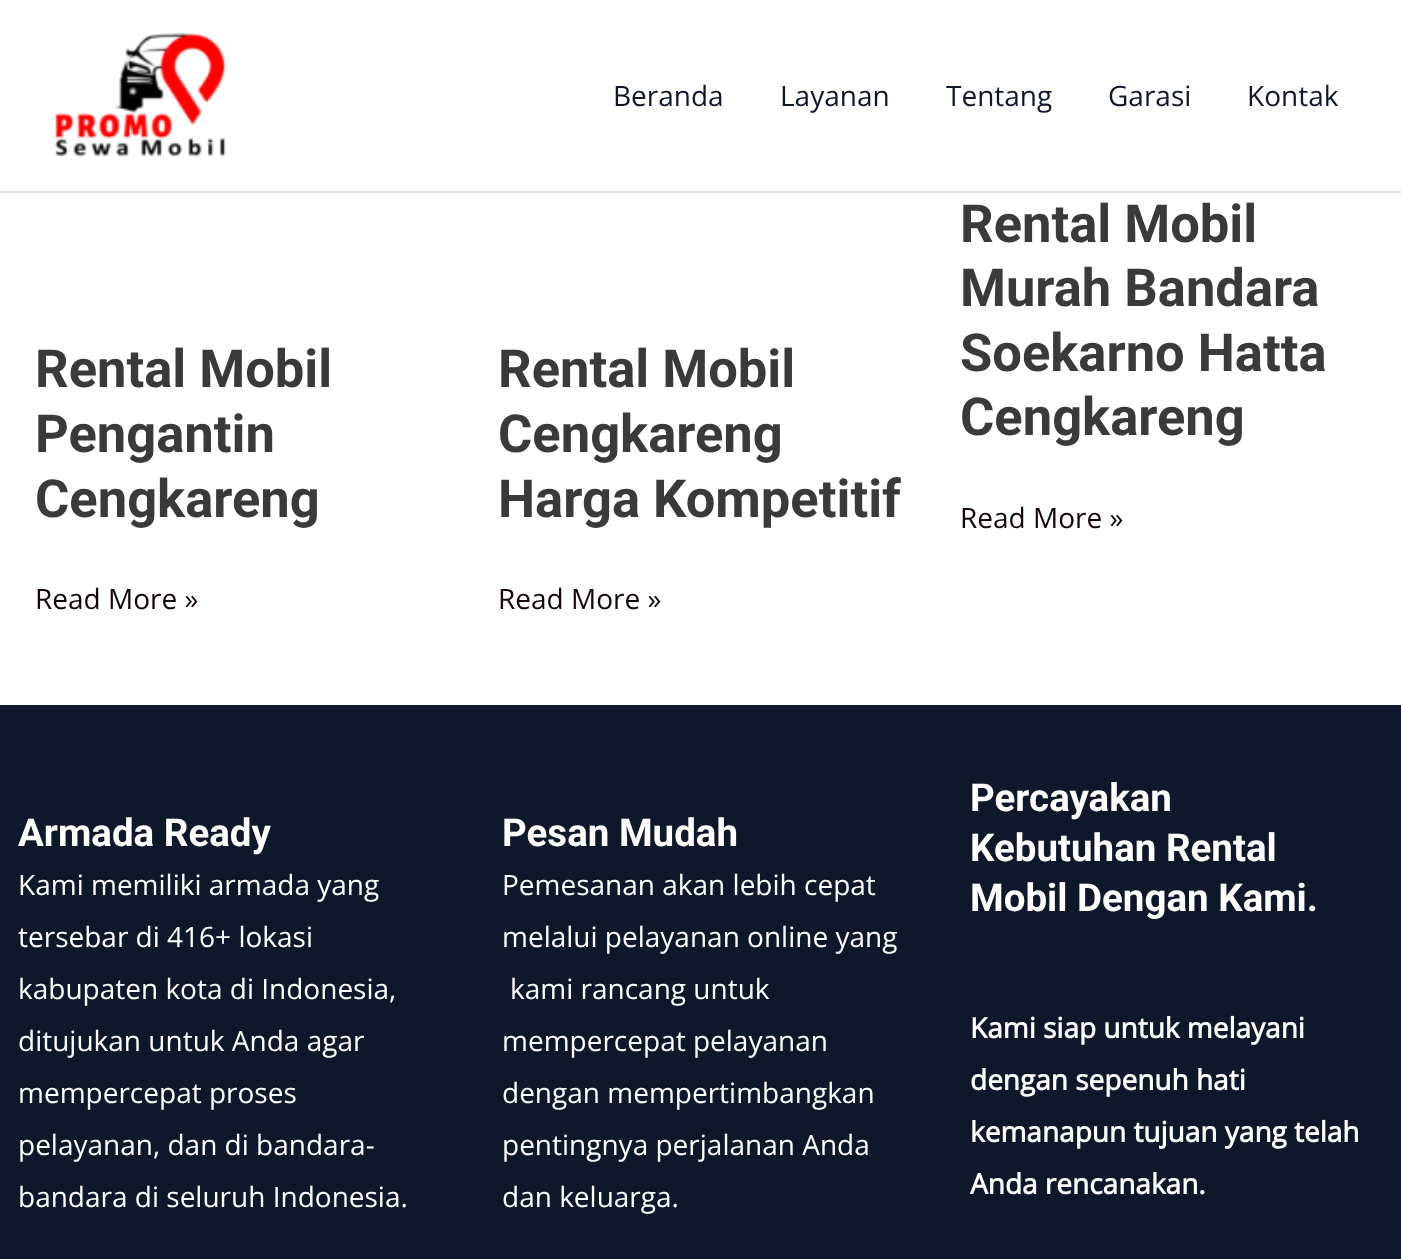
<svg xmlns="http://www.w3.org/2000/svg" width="1401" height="1259">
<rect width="100%" height="100%" fill="#fff"/>
<rect y="191" width="1401" height="2" fill="#ddd"/>
<image x="55" y="33" width="171" height="124" href="media/1.png"/>
<text x="613" y="106" style="font-family:Open Sans;font-size:28px;fill:#0f172a">Beranda</text>
<text x="780" y="106" style="font-family:Open Sans;font-size:28px;fill:#0f172a">Layanan</text>
<text x="946" y="106" style="font-family:Open Sans;font-size:28px;fill:#0f172a">Tentang</text>
<text x="1108" y="106" style="font-family:Open Sans;font-size:28px;fill:#0f172a">Garasi</text>
<text x="1247" y="106" style="font-family:Open Sans;font-size:28px;fill:#0f172a">Kontak</text>
<text x="35" y="387" style="font-family:Roboto;font-size:52.5px;font-weight:bold;fill:#3a3a3a">Rental Mobil</text>
<text x="35" y="452" style="font-family:Roboto;font-size:52.5px;font-weight:bold;fill:#3a3a3a">Pengantin</text>
<text x="35" y="517" style="font-family:Roboto;font-size:52.5px;font-weight:bold;fill:#3a3a3a">Cengkareng</text>
<text x="35" y="609" style="font-family:Open Sans;font-size:28px;fill:#140609">Read More »</text>
<text x="498" y="387" style="font-family:Roboto;font-size:52.5px;font-weight:bold;fill:#3a3a3a">Rental Mobil</text>
<text x="498" y="452" style="font-family:Roboto;font-size:52.5px;font-weight:bold;fill:#3a3a3a">Cengkareng</text>
<text x="498" y="517" style="font-family:Roboto;font-size:52.5px;font-weight:bold;fill:#3a3a3a">Harga Kompetitif</text>
<text x="498" y="609" style="font-family:Open Sans;font-size:28px;fill:#140609">Read More »</text>
<text x="960" y="242" style="font-family:Roboto;font-size:52.5px;font-weight:bold;fill:#3a3a3a">Rental Mobil</text>
<text x="960" y="306" style="font-family:Roboto;font-size:52.5px;font-weight:bold;fill:#3a3a3a">Murah Bandara</text>
<text x="960" y="371" style="font-family:Roboto;font-size:52.5px;font-weight:bold;fill:#3a3a3a">Soekarno Hatta</text>
<text x="960" y="435" style="font-family:Roboto;font-size:52.5px;font-weight:bold;fill:#3a3a3a">Cengkareng</text>
<text x="960" y="528" style="font-family:Open Sans;font-size:28px;fill:#140609">Read More »</text>
<rect y="705" width="1401" height="554" fill="#0f172a"/>
<text x="18" y="846" style="font-family:Roboto;font-size:38.5px;font-weight:bold;fill:#fff">Armada Ready</text>
<text x="18" y="895" style="font-family:Open Sans;font-size:28px;fill:#fff">Kami memiliki armada yang</text>
<text x="18" y="947" style="font-family:Open Sans;font-size:28px;fill:#fff">tersebar di 416+ lokasi</text>
<text x="18" y="999" style="font-family:Open Sans;font-size:28px;fill:#fff">kabupaten kota di Indonesia,</text>
<text x="18" y="1051" style="font-family:Open Sans;font-size:28px;fill:#fff">ditujukan untuk Anda agar</text>
<text x="18" y="1103" style="font-family:Open Sans;font-size:28px;fill:#fff">mempercepat proses</text>
<text x="18" y="1155" style="font-family:Open Sans;font-size:28px;fill:#fff">pelayanan, dan di bandara-</text>
<text x="18" y="1207" style="font-family:Open Sans;font-size:28px;fill:#fff">bandara di seluruh Indonesia.</text>
<text x="502" y="846" style="font-family:Roboto;font-size:38.5px;font-weight:bold;fill:#fff">Pesan Mudah</text>
<text x="502" y="895" style="font-family:Open Sans;font-size:28px;fill:#fff">Pemesanan akan lebih cepat</text>
<text x="502" y="947" style="font-family:Open Sans;font-size:28px;fill:#fff">melalui pelayanan online yang</text>
<text x="510" y="999" style="font-family:Open Sans;font-size:28px;fill:#fff">kami rancang untuk</text>
<text x="502" y="1051" style="font-family:Open Sans;font-size:28px;fill:#fff">mempercepat pelayanan</text>
<text x="502" y="1103" style="font-family:Open Sans;font-size:28px;fill:#fff">dengan mempertimbangkan</text>
<text x="502" y="1155" style="font-family:Open Sans;font-size:28px;fill:#fff">pentingnya perjalanan Anda</text>
<text x="502" y="1207" style="font-family:Open Sans;font-size:28px;fill:#fff">dan keluarga.</text>
<text x="970" y="811" style="font-family:Roboto;font-size:38.5px;font-weight:bold;fill:#fff">Percayakan</text>
<text x="970" y="861" style="font-family:Roboto;font-size:38.5px;font-weight:bold;fill:#fff">Kebutuhan Rental</text>
<text x="970" y="911" style="font-family:Roboto;font-size:38.5px;font-weight:bold;fill:#fff">Mobil Dengan Kami.</text>
<text x="970" y="1038" style="font-family:Open Sans;font-size:28px;font-weight:bold;fill:#fff">Kami siap untuk melayani</text>
<text x="970" y="1090" style="font-family:Open Sans;font-size:28px;font-weight:bold;fill:#fff">dengan sepenuh hati</text>
<text x="970" y="1142" style="font-family:Open Sans;font-size:28px;font-weight:bold;fill:#fff">kemanapun tujuan yang telah</text>
<text x="970" y="1194" style="font-family:Open Sans;font-size:28px;font-weight:bold;fill:#fff">Anda rencanakan.</text>
</svg>
